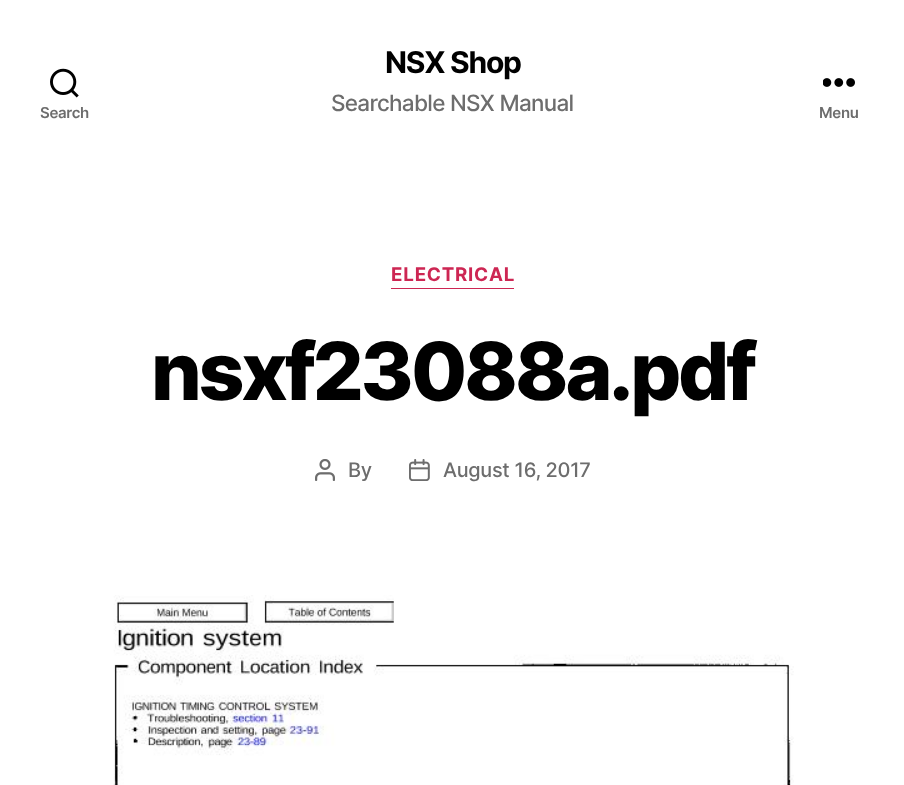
<svg xmlns="http://www.w3.org/2000/svg" width="904" height="785">
<rect width="100%" height="100%" fill="#fff"/>
<image x="50" y="68" width="29" height="30" href="media/1.png"/>
<text x="40" y="118" style="font-family:Inter;font-size:15px;font-weight:600;letter-spacing:-0.3px;fill:#6d6d6d">Search</text>
<text x="385" y="73" style="font-family:Inter;font-size:30px;font-weight:bold;letter-spacing:-1.25px;fill:#000">NSX Shop</text>
<text x="331" y="111" style="font-family:Inter;font-size:22.5px;font-weight:500;letter-spacing:-0.7px;fill:#6d6d6d">Searchable NSX Manual</text>
<image x="823" y="78" width="32" height="9" href="media/2.png"/>
<text x="819" y="118" style="font-family:Inter;font-size:15px;font-weight:600;letter-spacing:-0.3px;fill:#6d6d6d">Menu</text>
<rect x="391" y="288" width="123" height="1" fill="#cd2653"/>
<text x="391" y="281" style="font-family:Inter;font-size:18.75px;font-weight:bold;letter-spacing:0.75px;fill:#cd2653">ELECTRICAL</text>
<text x="151" y="400" style="font-family:Inter;font-size:80px;font-weight:800;letter-spacing:-3.3px;fill:#000">nsxf23088a.pdf</text>
<image x="315" y="459" width="20" height="22" href="media/3.png"/>
<text x="348" y="477" style="font-family:Inter;font-size:20px;font-weight:500;letter-spacing:-0.3px;fill:#6d6d6d">By</text>
<image x="409" y="459" width="21" height="22" href="media/4.png"/>
<text x="443" y="477" style="font-family:Inter;font-size:20px;font-weight:500;letter-spacing:-0.3px;fill:#6d6d6d">August 16, 2017</text>
<image x="113" y="595" width="681" height="190" href="media/5.png"/>
</svg>
